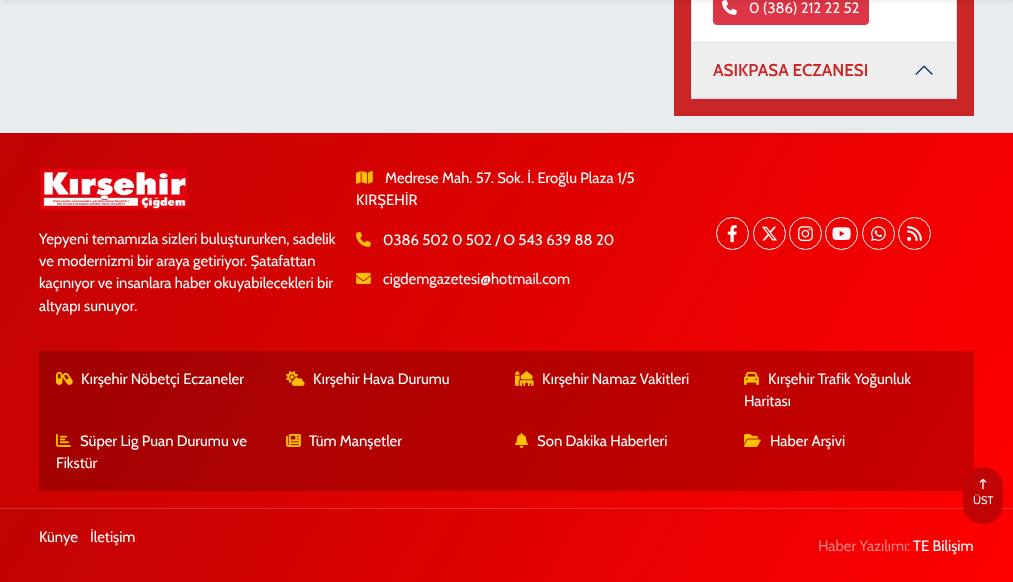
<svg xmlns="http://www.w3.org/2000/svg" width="1013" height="582">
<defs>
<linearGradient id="g1" gradientUnits="userSpaceOnUse" x1="45" y1="54" x2="968" y2="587"><stop offset="0" stop-color="#c00303"/><stop offset="1" stop-color="#f00"/></linearGradient>
<linearGradient id="g2" gradientUnits="userSpaceOnUse" x1="45" y1="54" x2="968" y2="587"><stop offset="0" stop-color="#9a0202"/><stop offset="1" stop-color="#c00"/></linearGradient>
<linearGradient id="g3" gradientUnits="userSpaceOnUse" x1="45" y1="429" x2="968" y2="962"><stop offset="0" stop-color="#cd3535"/><stop offset="1" stop-color="#f33"/></linearGradient>
<linearGradient id="g4" gradientUnits="userSpaceOnUse" x1="111" y1="317" x2="902" y2="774"><stop offset="0" stop-color="#c00303"/><stop offset="1" stop-color="#f00"/></linearGradient>
</defs>
<rect width="100%" height="100%" fill="#e9ecef"/>
<rect x="674" width="300" height="116" fill="#ca2527"/>
<rect x="691.5" y="-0.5" width="265" height="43" fill="#fff" stroke="#dee2e6"/>
<rect x="713.5" y="-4.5" width="155" height="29" rx="3.5" fill="#dc3545" stroke="#dc3545"/>
<image x="722" y="0" width="15" height="15" href="media/1.png"/>
<rect y="-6" width="1013" height="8" fill="#00000012" filter="blur(2px)"/>
<text x="749" y="13" style="font-family:Cabin;font-size:14.9px;fill:#fff">0 (386) 212 22 52</text>
<rect x="956" y="43" width="1" height="56" fill="#dee2e6"/>
<rect x="691" y="98" width="266" height="1" fill="#dee2e6"/>
<rect x="691" y="43" width="1" height="56" fill="#dee2e6"/>
<rect x="692" y="43" width="264" height="54" fill="#eee"/>
<rect x="692" y="97" width="264" height="1" fill="#dee2e6"/>
<text x="713" y="76" style="font-family:Cabin;font-size:17px;font-weight:600;fill:#ca2527">ASIKPASA ECZANESI</text>
<image x="915" y="65" width="18" height="10" href="media/2.png"/>
<rect y="133" width="1013" height="375" fill="url(#g1)"/>
<rect x="39" y="351" width="935" height="140" fill="url(#g2)"/>
<rect y="508" width="1013" height="1" fill="url(#g3)"/>
<image x="40" y="168" width="148" height="42" href="media/3.png"/>
<text x="39" y="244" style="font-family:Cabin;font-size:14.9px;fill:#fff">Yepyeni temamızla sizleri buluştururken, sadelik</text>
<text x="39" y="266" style="font-family:Cabin;font-size:14.9px;fill:#fff">ve modernizmi bir araya getiriyor. Şatafattan</text>
<text x="39" y="288" style="font-family:Cabin;font-size:14.9px;fill:#fff">kaçınıyor ve insanlara haber okuyabilecekleri bir</text>
<text x="39" y="311" style="font-family:Cabin;font-size:14.9px;fill:#fff">altyapı sunuyor.</text>
<image x="356" y="171" width="17" height="13" href="media/4.png"/>
<text x="385" y="183" style="font-family:Cabin;font-size:14.9px;fill:#fff">Medrese Mah. 57. Sok. İ. Eroğlu Plaza 1/5</text>
<text x="356" y="205" style="font-family:Cabin;font-size:14.9px;fill:#fff">KIRŞEHİR</text>
<image x="356" y="232" width="15" height="15" href="media/5.png"/>
<text x="383" y="245" style="font-family:Cabin;font-size:14.9px;fill:#fff">0386 502 0 502 / O 543 639 88 20</text>
<image x="356" y="272" width="15" height="12" href="media/6.png"/>
<text x="383" y="284" style="font-family:Cabin;font-size:14.9px;fill:#fff">cigdemgazetesi@hotmail.com</text>
<circle cx="732.5" cy="233.5" r="16" fill="none" stroke="#f8f9fa"/>
<image x="727" y="225" width="10" height="18" href="media/7.png"/>
<circle cx="769.5" cy="233.5" r="16" fill="none" stroke="#f8f9fa"/>
<image x="762" y="226" width="15" height="15" href="media/8.png"/>
<circle cx="805.5" cy="233.5" r="16" fill="none" stroke="#f8f9fa"/>
<image x="798" y="226" width="15" height="16" href="media/9.png"/>
<circle cx="841.5" cy="233.5" r="16" fill="none" stroke="#f8f9fa"/>
<image x="832" y="227" width="19" height="13" href="media/10.png"/>
<circle cx="878.5" cy="233.5" r="16" fill="none" stroke="#f8f9fa"/>
<image x="871" y="226" width="15" height="15" href="media/11.png"/>
<circle cx="914.5" cy="233.5" r="16" fill="none" stroke="#f8f9fa"/>
<image x="907" y="226" width="15" height="15" href="media/12.png"/>
<image x="56" y="371" width="17" height="14" href="media/13.png"/>
<text x="81" y="384" style="font-family:Cabin;font-size:14.9px;fill:#fff">Kırşehir Nöbetçi Eczaneler</text>
<image x="286" y="371" width="19" height="15" href="media/14.png"/>
<text x="313" y="384" style="font-family:Cabin;font-size:14.9px;fill:#fff">Kırşehir Hava Durumu</text>
<image x="515" y="371" width="19" height="15" href="media/15.png"/>
<text x="542" y="384" style="font-family:Cabin;font-size:14.9px;fill:#fff">Kırşehir Namaz Vakitleri</text>
<image x="744" y="371" width="15" height="14" href="media/16.png"/>
<text x="768" y="384" style="font-family:Cabin;font-size:14.9px;fill:#fff">Kırşehir Trafik Yoğunluk</text>
<text x="744" y="406" style="font-family:Cabin;font-size:14.9px;fill:#fff">Haritası</text>
<image x="56" y="434" width="15" height="13" href="media/17.png"/>
<text x="80" y="446" style="font-family:Cabin;font-size:14.9px;fill:#fff">Süper Lig Puan Durumu ve</text>
<text x="56" y="468" style="font-family:Cabin;font-size:14.9px;fill:#fff">Fikstür</text>
<image x="286" y="433" width="15" height="14" href="media/18.png"/>
<text x="309" y="446" style="font-family:Cabin;font-size:14.9px;fill:#fff">Tüm Manşetler</text>
<image x="515" y="433" width="13" height="15" href="media/19.png"/>
<text x="537" y="446" style="font-family:Cabin;font-size:14.9px;fill:#fff">Son Dakika Haberleri</text>
<image x="744" y="433" width="17" height="14" href="media/20.png"/>
<text x="770" y="446" style="font-family:Cabin;font-size:14.9px;fill:#fff">Haber Arşivi</text>
<rect y="509" width="1013" height="73" fill="url(#g4)"/>
<text x="39" y="542" style="font-family:Cabin;font-size:14.9px;fill:#fff">Künye</text>
<text x="90" y="542" style="font-family:Cabin;font-size:14.9px;fill:#fff">İletişim</text>
<text x="818" y="551" style="font-family:Cabin;font-size:14.9px;fill:#fa8080">Haber Yazılımı:</text>
<text x="913" y="551" style="font-family:Cabin;font-size:14.9px;fill:#fff">TE Bilişim</text>
<rect x="963" y="467" width="40" height="57" rx="20" fill="#c00303"/>
<image x="979" y="478" width="8" height="12" href="media/21.png"/>
<text x="973" y="504" style="font-family:Cabin;font-size:11px;fill:#fff">ÜST</text>
</svg>
